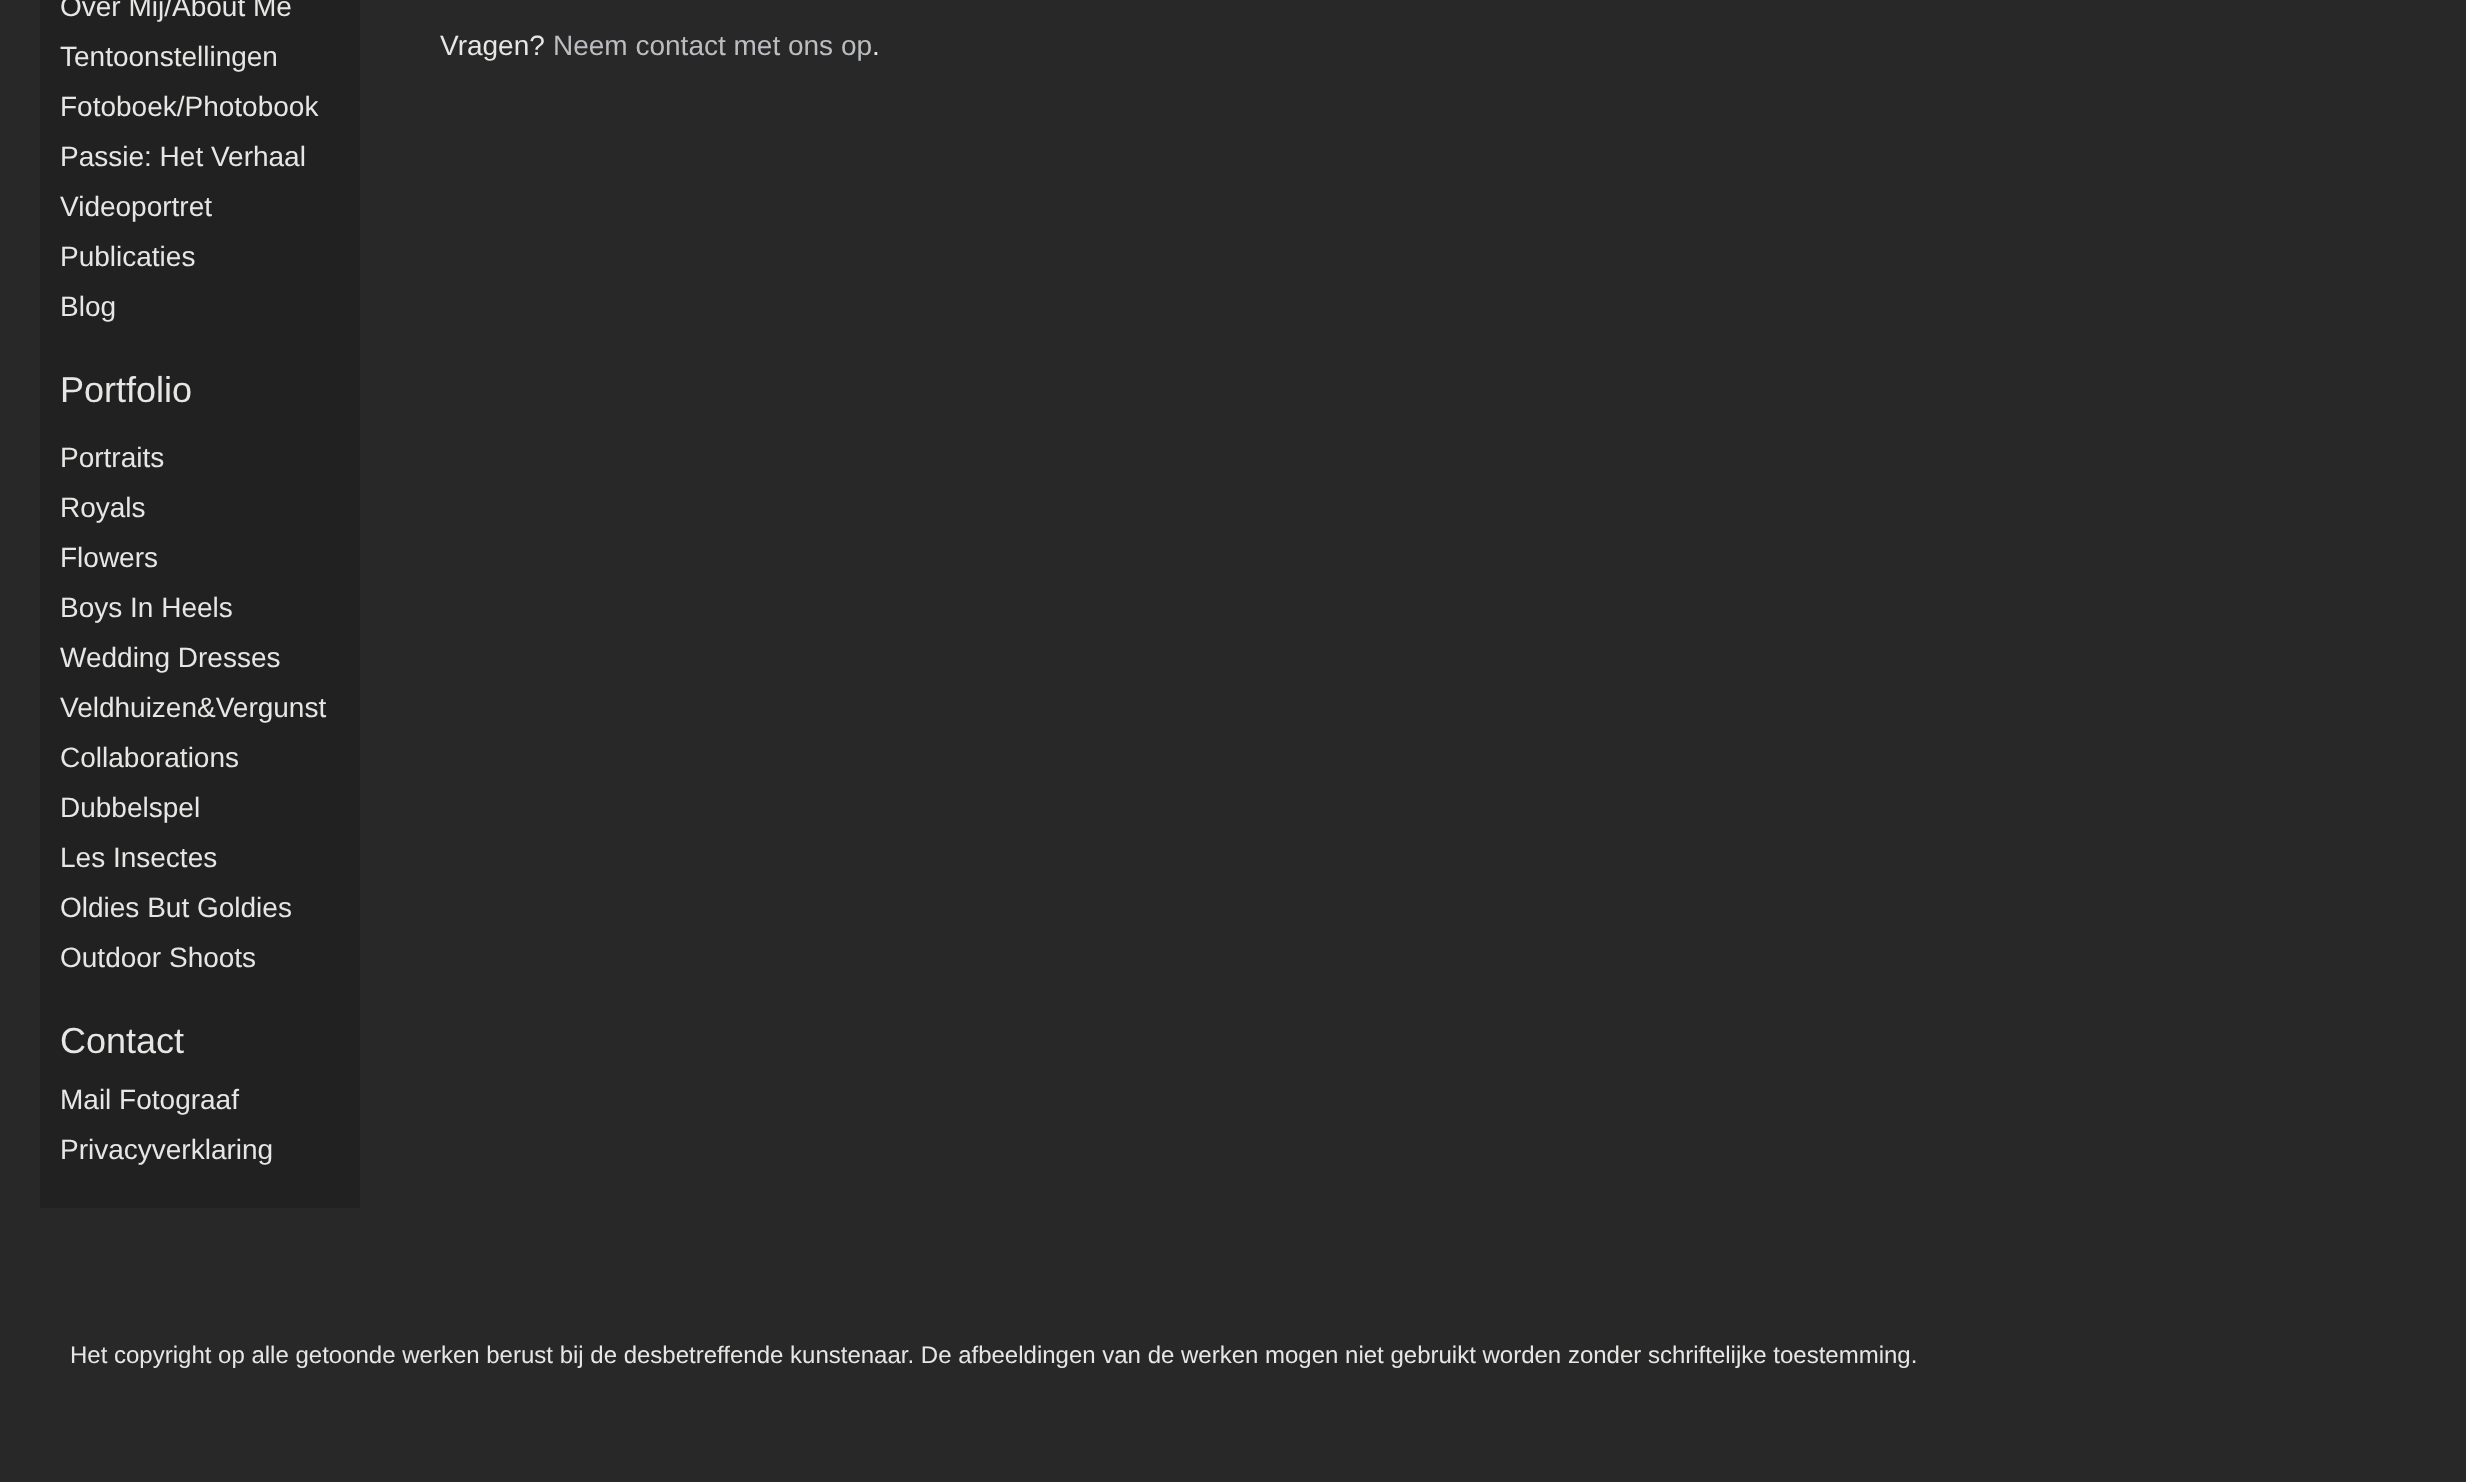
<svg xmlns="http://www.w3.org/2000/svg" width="2466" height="1482">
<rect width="100%" height="100%" fill="#282828"/>
<rect x="40" width="320" height="1208" fill="#212121"/>
<text x="60" y="16" style="font-family:Liberation Sans;font-size:28px;fill:#e6e6e5">Over Mij/About Me</text>
<text x="60" y="66" style="font-family:Liberation Sans;font-size:28px;fill:#e6e6e5">Tentoonstellingen</text>
<text x="60" y="116" style="font-family:Liberation Sans;font-size:28px;fill:#e6e6e5">Fotoboek/Photobook</text>
<text x="60" y="166" style="font-family:Liberation Sans;font-size:28px;fill:#e6e6e5">Passie: Het Verhaal</text>
<text x="60" y="216" style="font-family:Liberation Sans;font-size:28px;fill:#e6e6e5">Videoportret</text>
<text x="60" y="266" style="font-family:Liberation Sans;font-size:28px;fill:#e6e6e5">Publicaties</text>
<text x="60" y="316" style="font-family:Liberation Sans;font-size:28px;fill:#e6e6e5">Blog</text>
<text x="60" y="402" style="font-family:Liberation Sans;font-size:36px;fill:#e6e6e5">Portfolio</text>
<text x="60" y="467" style="font-family:Liberation Sans;font-size:28px;fill:#e6e6e5">Portraits</text>
<text x="60" y="517" style="font-family:Liberation Sans;font-size:28px;fill:#e6e6e5">Royals</text>
<text x="60" y="567" style="font-family:Liberation Sans;font-size:28px;fill:#e6e6e5">Flowers</text>
<text x="60" y="617" style="font-family:Liberation Sans;font-size:28px;fill:#e6e6e5">Boys In Heels</text>
<text x="60" y="667" style="font-family:Liberation Sans;font-size:28px;fill:#e6e6e5">Wedding Dresses</text>
<text x="60" y="717" style="font-family:Liberation Sans;font-size:28px;fill:#e6e6e5">Veldhuizen&amp;Vergunst</text>
<text x="60" y="767" style="font-family:Liberation Sans;font-size:28px;fill:#e6e6e5">Collaborations</text>
<text x="60" y="817" style="font-family:Liberation Sans;font-size:28px;fill:#e6e6e5">Dubbelspel</text>
<text x="60" y="867" style="font-family:Liberation Sans;font-size:28px;fill:#e6e6e5">Les Insectes</text>
<text x="60" y="917" style="font-family:Liberation Sans;font-size:28px;fill:#e6e6e5">Oldies But Goldies</text>
<text x="60" y="967" style="font-family:Liberation Sans;font-size:28px;fill:#e6e6e5">Outdoor Shoots</text>
<text x="60" y="1053" style="font-family:Liberation Sans;font-size:36px;fill:#e6e6e5">Contact</text>
<text x="60" y="1109" style="font-family:Liberation Sans;font-size:28px;fill:#e6e6e5">Mail Fotograaf</text>
<text x="60" y="1159" style="font-family:Liberation Sans;font-size:28px;fill:#e6e6e5">Privacyverklaring</text>
<text x="440" y="55" style="font-family:Liberation Sans;font-size:28px;fill:#e6e6e5">Vragen?</text>
<text x="553" y="55" style="font-family:Liberation Sans;font-size:28px;fill:#bcbdc0">Neem contact met ons op</text>
<text x="872" y="55" style="font-family:Liberation Sans;font-size:28px;fill:#e6e6e5">.</text>
<text x="70" y="1363" style="font-family:Liberation Sans;font-size:24px;fill:#e6e6e5">Het copyright op alle getoonde werken berust bij de desbetreffende kunstenaar. De afbeeldingen van de werken mogen niet gebruikt worden zonder schriftelijke toestemming.</text>
</svg>
